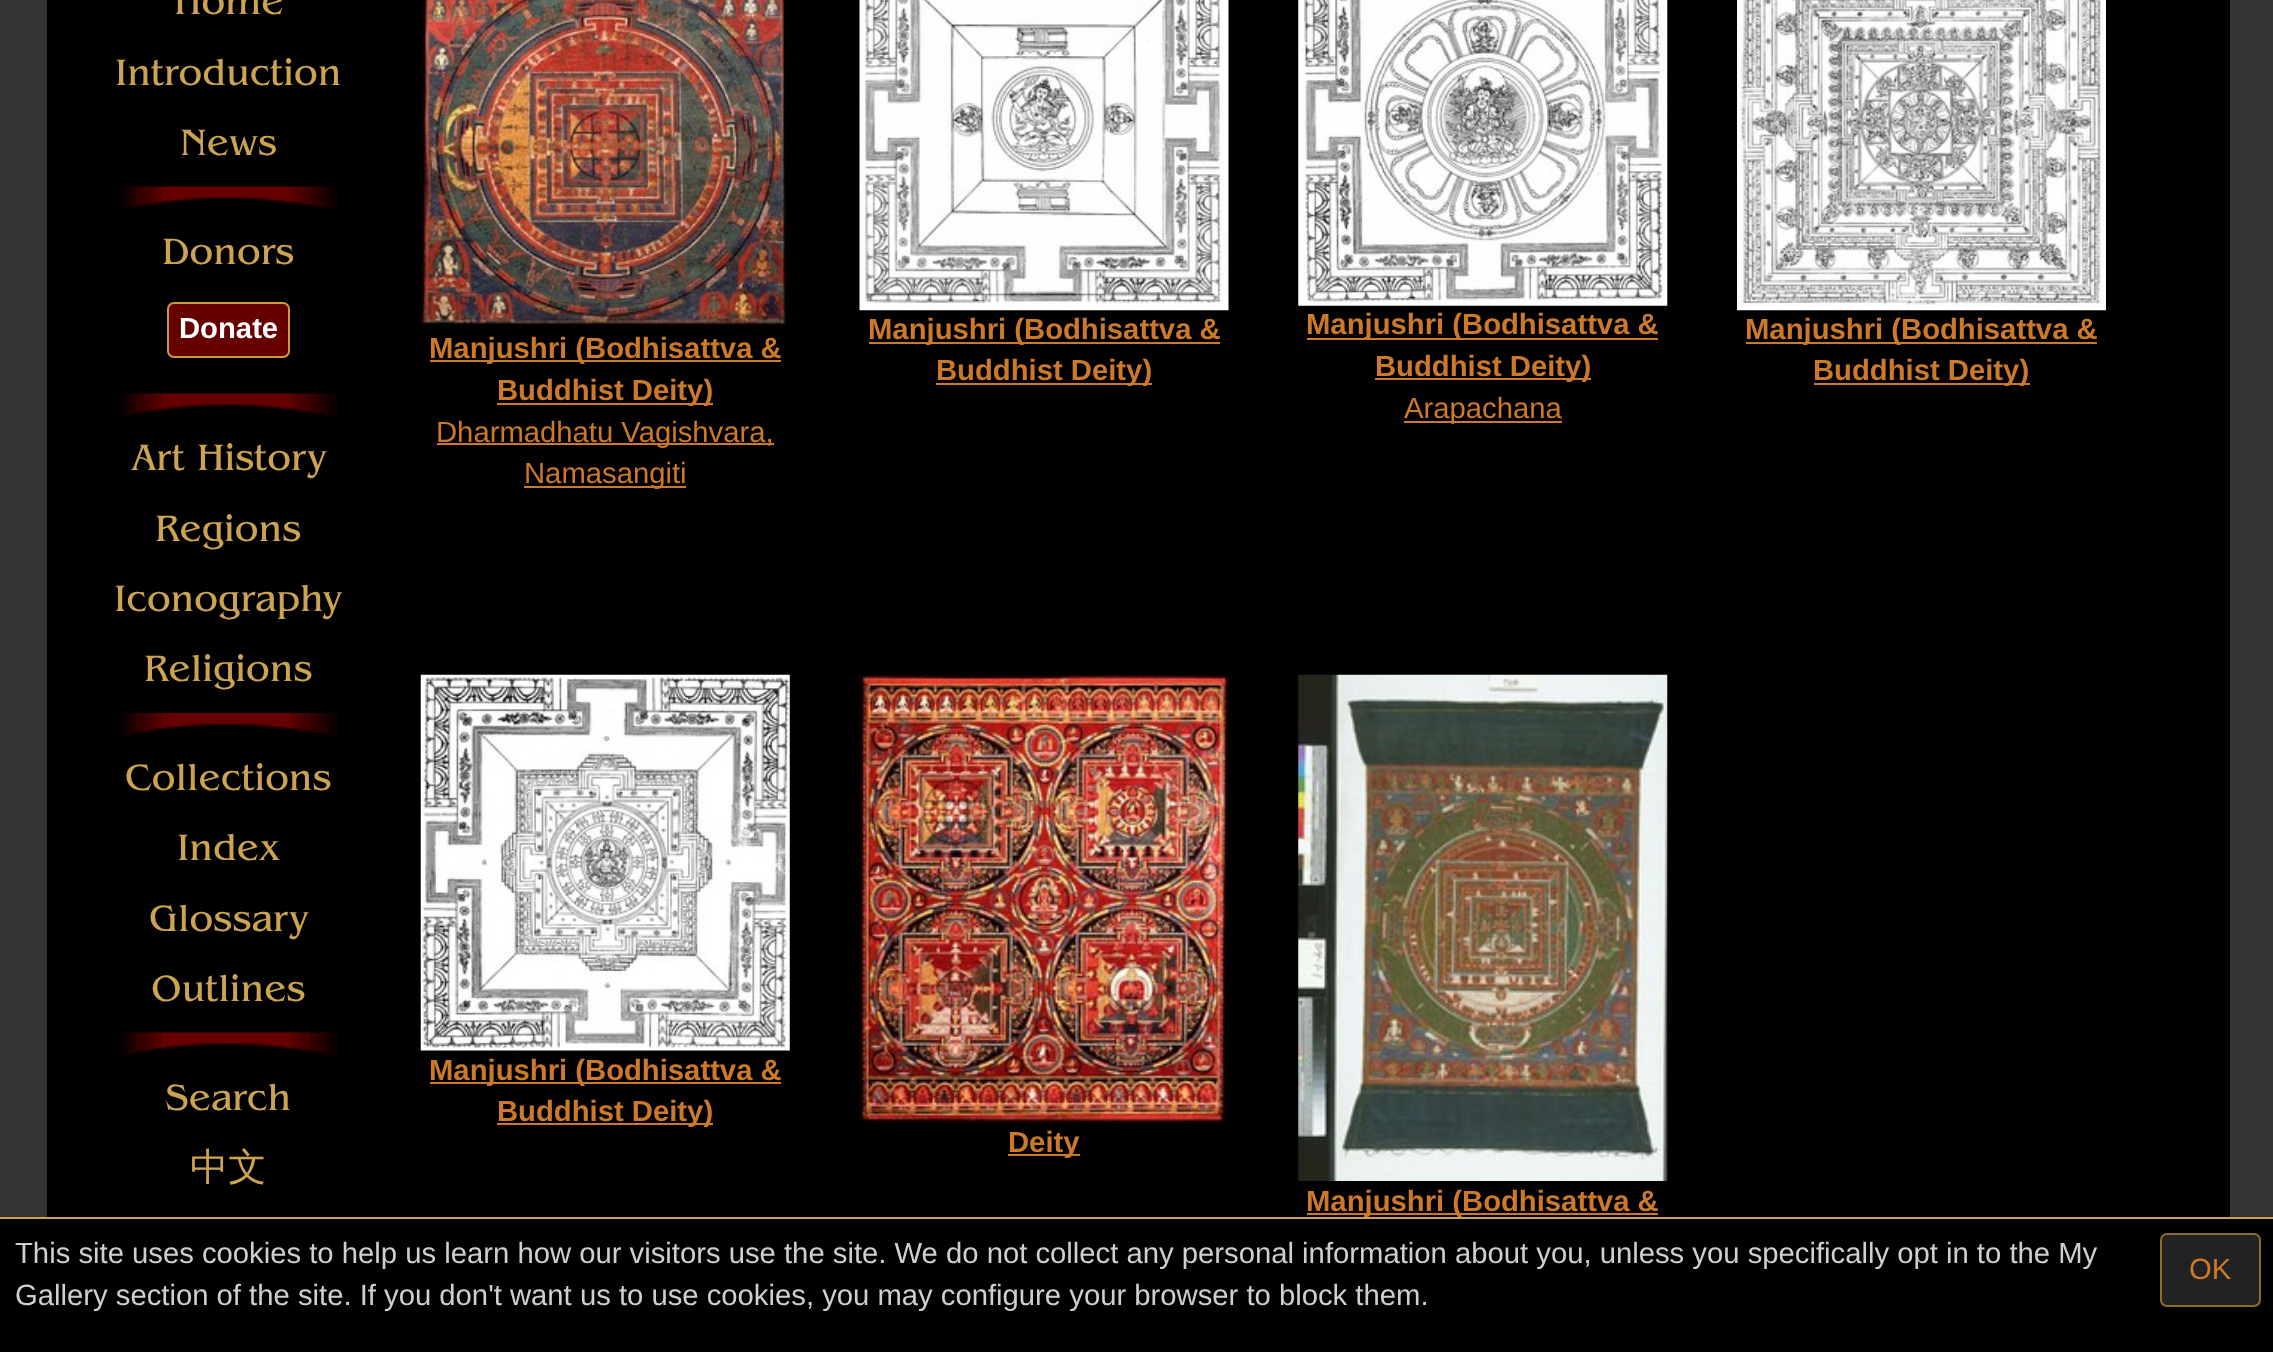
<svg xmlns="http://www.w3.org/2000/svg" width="2273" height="1352">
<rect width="100%" height="100%" fill="#333"/>
<rect x="47" width="2183" height="1217" fill="#000"/>
<text x="174" y="14" style="font-family:'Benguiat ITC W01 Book';font-size:38.25px;fill:#cca351">Home</text>
<text x="115" y="85" style="font-family:'Benguiat ITC W01 Book';font-size:38.25px;fill:#cca351">Introduction</text>
<text x="180" y="155" style="font-family:'Benguiat ITC W01 Book';font-size:38.25px;fill:#cca351">News</text>
<image x="120" y="186" width="220" height="24" href="media/1.png"/>
<text x="162" y="264" style="font-family:'Benguiat ITC W01 Book';font-size:38.25px;fill:#cca351">Donors</text>
<rect x="168" y="303" width="121" height="54" rx="6" fill="#600" stroke="#cf9935" stroke-width="2"/>
<text x="179" y="338" style="font-family:Liberation Sans;font-size:29.25px;font-weight:bold;fill:#fff">Donate</text>
<image x="120" y="393" width="220" height="24" href="media/2.png"/>
<text x="131" y="470" style="font-family:'Benguiat ITC W01 Book';font-size:38.25px;fill:#cca351">Art History</text>
<text x="155" y="541" style="font-family:'Benguiat ITC W01 Book';font-size:38.25px;fill:#cca351">Regions</text>
<text x="114" y="611" style="font-family:'Benguiat ITC W01 Book';font-size:38.25px;fill:#cca351">Iconography</text>
<text x="144" y="681" style="font-family:'Benguiat ITC W01 Book';font-size:38.25px;fill:#cca351">Religions</text>
<image x="120" y="713" width="220" height="23" href="media/3.png"/>
<text x="125" y="790" style="font-family:'Benguiat ITC W01 Book';font-size:38.25px;fill:#cca351">Collections</text>
<text x="177" y="860" style="font-family:'Benguiat ITC W01 Book';font-size:38.25px;fill:#cca351">Index</text>
<text x="149" y="931" style="font-family:'Benguiat ITC W01 Book';font-size:38.25px;fill:#cca351">Glossary</text>
<text x="151" y="1001" style="font-family:'Benguiat ITC W01 Book';font-size:38.25px;fill:#cca351">Outlines</text>
<image x="120" y="1032" width="220" height="24" href="media/1.png"/>
<text x="165" y="1110" style="font-family:'Benguiat ITC W01 Book';font-size:38.25px;fill:#cca351">Search</text>
<text x="190" y="1180" style="font-family:WenQuanYi Zen Hei;font-size:38.25px;font-weight:500;fill:#cca351">中文</text>
<image x="421" y="0" width="369" height="328" href="media/4.png"/>
<rect x="430" y="360" width="351" height="2" fill="#cc792a"/>
<text x="429" y="358" style="font-family:Liberation Sans;font-size:29.25px;font-weight:bold;fill:#cc792a">Manjushri (Bodhisattva &amp;</text>
<rect x="497" y="403" width="216" height="2" fill="#cc792a"/>
<text x="497" y="400" style="font-family:Liberation Sans;font-size:29.25px;font-weight:bold;fill:#cc792a">Buddhist Deity)</text>
<rect x="437" y="443" width="337" height="2" fill="#cc792a"/>
<text x="436" y="442" style="font-family:Liberation Sans;font-size:29.25px;fill:#cc792a">Dharmadhatu Vagishvara,</text>
<rect x="524" y="486" width="162" height="2" fill="#cc792a"/>
<text x="524" y="483" style="font-family:Liberation Sans;font-size:29.25px;fill:#cc792a">Namasangiti</text>
<image x="859" y="0" width="370" height="311" href="media/5.png"/>
<rect x="869" y="342" width="351" height="2" fill="#cc792a"/>
<text x="868" y="339" style="font-family:Liberation Sans;font-size:29.25px;font-weight:bold;fill:#cc792a">Manjushri (Bodhisattva &amp;</text>
<rect x="936" y="383" width="216" height="2" fill="#cc792a"/>
<text x="936" y="380" style="font-family:Liberation Sans;font-size:29.25px;font-weight:bold;fill:#cc792a">Buddhist Deity)</text>
<image x="1298" y="0" width="370" height="306" href="media/6.png"/>
<rect x="1307" y="338" width="351" height="2" fill="#cc792a"/>
<text x="1306" y="334" style="font-family:Liberation Sans;font-size:29.25px;font-weight:bold;fill:#cc792a">Manjushri (Bodhisattva &amp;</text>
<rect x="1375" y="378" width="216" height="2" fill="#cc792a"/>
<text x="1375" y="376" style="font-family:Liberation Sans;font-size:29.25px;font-weight:bold;fill:#cc792a">Buddhist Deity)</text>
<rect x="1404" y="421" width="158" height="2" fill="#cc792a"/>
<text x="1404" y="418" style="font-family:Liberation Sans;font-size:29.25px;fill:#cc792a">Arapachana</text>
<image x="1737" y="0" width="369" height="311" href="media/7.png"/>
<rect x="1746" y="342" width="351" height="2" fill="#cc792a"/>
<text x="1745" y="339" style="font-family:Liberation Sans;font-size:29.25px;font-weight:bold;fill:#cc792a">Manjushri (Bodhisattva &amp;</text>
<rect x="1814" y="383" width="216" height="2" fill="#cc792a"/>
<text x="1813" y="380" style="font-family:Liberation Sans;font-size:29.25px;font-weight:bold;fill:#cc792a">Buddhist Deity)</text>
<image x="420" y="674" width="370" height="377" href="media/8.png"/>
<rect x="430" y="1082" width="351" height="2" fill="#cc792a"/>
<text x="429" y="1080" style="font-family:Liberation Sans;font-size:29.25px;font-weight:bold;fill:#cc792a">Manjushri (Bodhisattva &amp;</text>
<rect x="497" y="1123" width="216" height="2" fill="#cc792a"/>
<text x="497" y="1121" style="font-family:Liberation Sans;font-size:29.25px;font-weight:bold;fill:#cc792a">Buddhist Deity)</text>
<image x="859" y="674" width="370" height="449" href="media/9.png"/>
<rect x="1008" y="1154" width="72" height="2" fill="#cc792a"/>
<text x="1008" y="1152" style="font-family:Liberation Sans;font-size:29.25px;font-weight:bold;fill:#cc792a">Deity</text>
<image x="1298" y="674" width="370" height="507" href="media/10.png"/>
<rect x="1307" y="1213" width="351" height="2" fill="#cc792a"/>
<text x="1306" y="1211" style="font-family:Liberation Sans;font-size:29.25px;font-weight:bold;fill:#cc792a">Manjushri (Bodhisattva &amp;</text>
<rect y="1219" width="2273" height="133" fill="#000"/>
<rect y="1217" width="2273" height="2" fill="#cca351"/>
<text x="15" y="1263" style="font-family:Liberation Sans;font-size:29.25px;fill:#cfcfcf">This site uses cookies to help us learn how our visitors use the site. We do not collect any personal information about you, unless you specifically opt in to the My</text>
<text x="15" y="1305" style="font-family:Liberation Sans;font-size:29.25px;fill:#cfcfcf">Gallery section of the site. If you don't want us to use cookies, you may configure your browser to block them.</text>
<rect x="2161" y="1234" width="99" height="72" rx="6" fill="#222" stroke="#8e6c29" stroke-width="2"/>
<text x="2189" y="1279" style="font-family:Liberation Sans;font-size:29.25px;fill:#cc792a">OK</text>
</svg>
